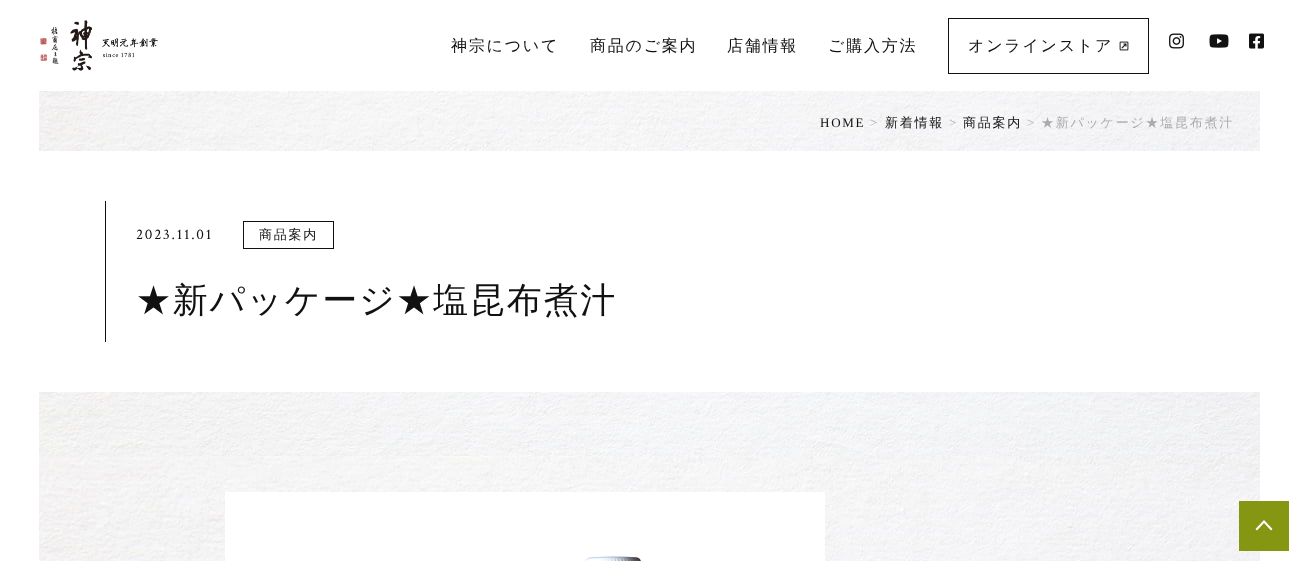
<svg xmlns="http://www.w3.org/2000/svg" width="1299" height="561">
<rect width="100%" height="100%" fill="#fff"/>
<image x="40" y="20" width="118" height="51" href="media/1.png"/>
<text x="451" y="51" style="font-family:WenQuanYi Zen Hei;font-size:16px;font-weight:500;letter-spacing:1.75px;fill:#111">神宗について</text>
<text x="590" y="51" style="font-family:WenQuanYi Zen Hei;font-size:16px;font-weight:500;letter-spacing:1.75px;fill:#111">商品のご案内</text>
<text x="727" y="51" style="font-family:WenQuanYi Zen Hei;font-size:16px;font-weight:500;letter-spacing:1.75px;fill:#111">店舗情報</text>
<text x="828" y="51" style="font-family:WenQuanYi Zen Hei;font-size:16px;font-weight:500;letter-spacing:1.75px;fill:#111">ご購入方法</text>
<rect x="948.5" y="18.5" width="200" height="55" fill="none" stroke="#111"/>
<text x="968" y="51" style="font-family:WenQuanYi Zen Hei;font-size:16px;font-weight:500;letter-spacing:1.75px;fill:#111">オンラインストア</text>
<image x="1119" y="41" width="10" height="10" href="media/2.png"/>
<image x="1169" y="33" width="15" height="16" href="media/3.png"/>
<image x="1209" y="34" width="20" height="14" href="media/4.png"/>
<image x="1249" y="33" width="15" height="16" href="media/5.png"/>
<image x="39" y="91" width="1221" height="470" href="media/6.png"/>
<text x="820" y="127" style="font-family:Liberation Serif;font-size:13px;letter-spacing:1.75px;fill:#111">HOME</text>
<text x="870" y="127" style="font-family:Liberation Serif;font-size:13px;letter-spacing:1.75px;fill:#aaa">&gt;</text>
<text x="885" y="127" style="font-family:WenQuanYi Zen Hei;font-size:13px;font-weight:500;letter-spacing:1.75px;fill:#111">新着情報</text>
<text x="949" y="127" style="font-family:Liberation Serif;font-size:13px;letter-spacing:1.75px;fill:#aaa">&gt;</text>
<text x="963" y="127" style="font-family:WenQuanYi Zen Hei;font-size:13px;font-weight:500;letter-spacing:1.75px;fill:#111">商品案内</text>
<text x="1027" y="127" style="font-family:Liberation Serif;font-size:13px;letter-spacing:1.75px;fill:#aaa">&gt;</text>
<text x="1041" y="127" style="font-family:WenQuanYi Zen Hei;font-size:13px;font-weight:500;letter-spacing:1.75px;fill:#aaa">★新パッケージ★塩昆布煮汁</text>
<rect x="39" y="151" width="1221" height="241" fill="#fff"/>
<rect x="105" y="201" width="1" height="141" fill="#111"/>
<text x="136" y="239" style="font-family:Crimson Text;font-size:15px;letter-spacing:1.75px;fill:#111">2023.11.01</text>
<rect x="243.5" y="221.5" width="90" height="27" fill="none" stroke="#111"/>
<text x="259" y="239" style="font-family:WenQuanYi Zen Hei;font-size:13px;font-weight:500;letter-spacing:1.75px;fill:#111">商品案内</text>
<text x="136" y="312" style="font-family:WenQuanYi Zen Hei;font-size:35px;font-weight:500;letter-spacing:1.75px;fill:#111">★新パッケージ★塩昆布煮汁</text>
<image x="225" y="492" width="600" height="69" href="media/7.png"/>
<rect x="1239" y="501" width="50" height="50" fill="#859613"/>
<path d="M1264 520l8.5 9l-1.5 1.5l-7-7.5l-7 7.5l-1.5-1.5z" fill="#fff"/>
</svg>
